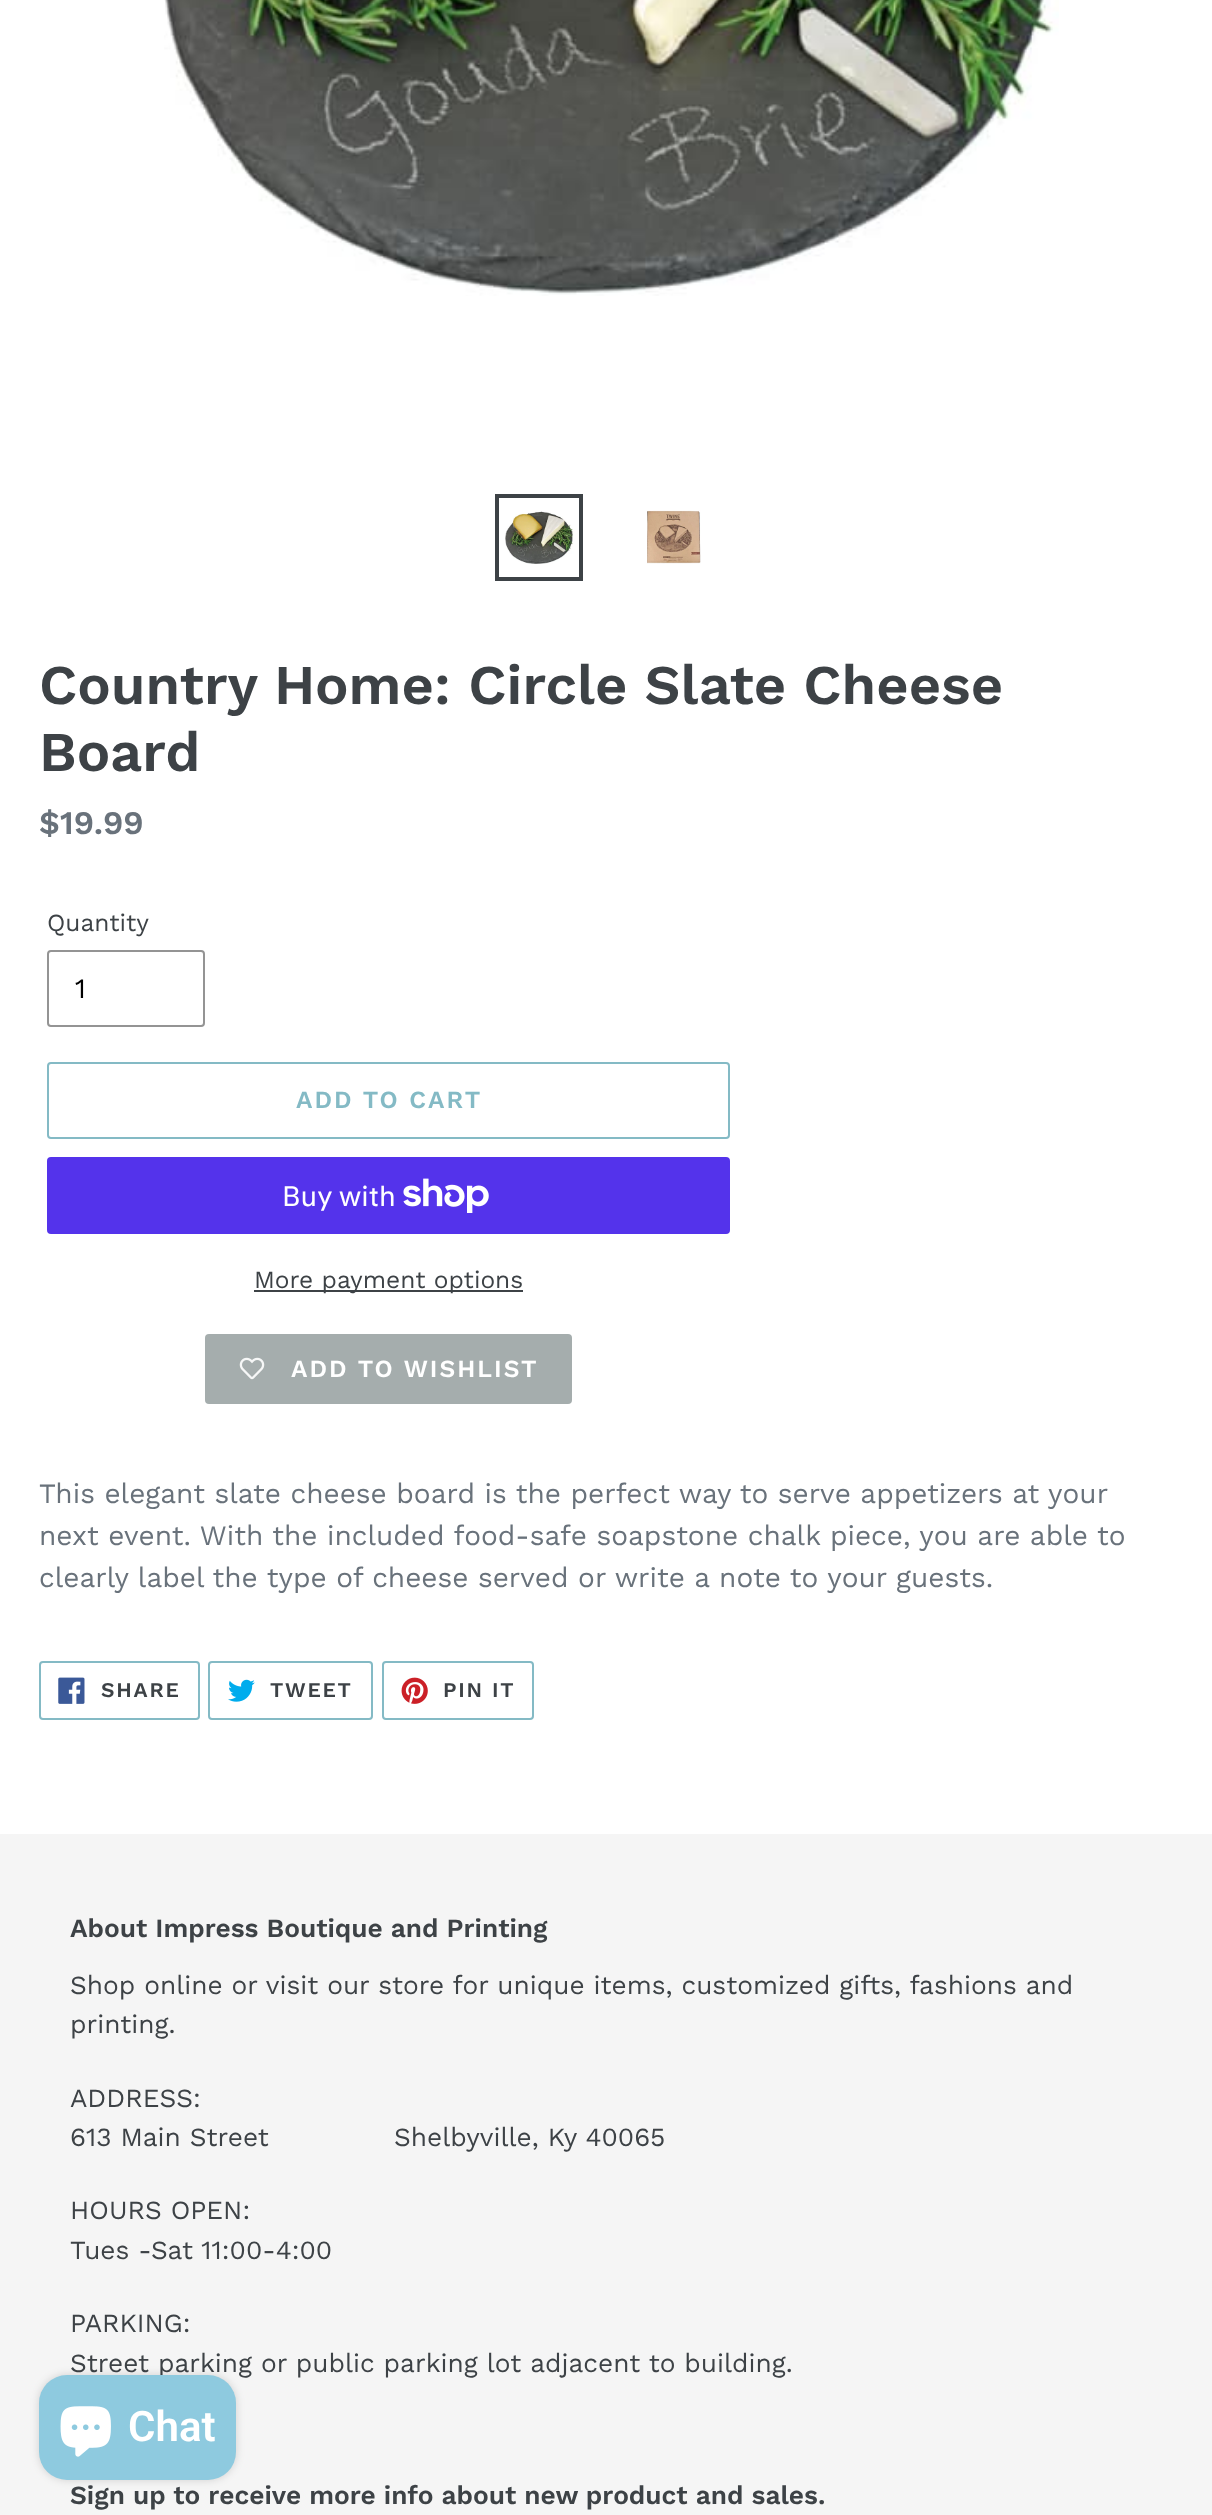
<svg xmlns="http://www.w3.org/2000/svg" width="1212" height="2515">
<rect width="100%" height="100%" fill="#fff"/>
<image x="164" y="0" width="895" height="296" href="media/1.png"/>
<rect x="497" y="496" width="84" height="83" fill="none" stroke="#3d4246" stroke-width="4"/>
<image x="505" y="511" width="69" height="53" href="media/2.png"/>
<image x="647" y="510" width="54" height="54" href="media/3.png"/>
<text x="39" y="704" style="font-family:Work Sans;font-size:56px;font-weight:600;fill:#3d4246">Country Home: Circle Slate Cheese</text>
<text x="39" y="771" style="font-family:Work Sans;font-size:56px;font-weight:600;fill:#3d4246">Board</text>
<text x="39" y="834" style="font-family:Work Sans;font-size:33px;font-weight:600;fill:#69727b">$19.99</text>
<text x="47" y="931" style="font-family:Work Sans;font-size:24.5px;fill:#3d4246">Quantity</text>
<rect x="48" y="951" width="156" height="75" rx="3" fill="none" stroke="#949494" stroke-width="2"/>
<text x="75" y="998" style="font-family:Work Sans;font-size:28px;fill:#000">1</text>
<rect x="48" y="1063" width="681" height="75" rx="3" fill="none" stroke="#84bac5" stroke-width="2"/>
<text x="296" y="1108" style="font-family:Work Sans;font-size:24.5px;font-weight:600;letter-spacing:2px;fill:#84bac5">ADD TO CART</text>
<rect x="47" y="1157" width="683" height="77" rx="4" fill="#5433eb"/>
<text x="282" y="1206" style="font-family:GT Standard;font-size:28px;fill:#fff">Buy with</text>
<image x="403" y="1178" width="86" height="35" href="media/4.png"/>
<rect x="254" y="1290" width="269" height="2" fill="#3d4246"/>
<text x="254" y="1288" style="font-family:Work Sans;font-size:24.5px;fill:#3d4246">More payment options</text>
<rect x="205" y="1334" width="367" height="70" rx="4" fill="#a5adad"/>
<image x="239" y="1357" width="26" height="23" href="media/5.png"/>
<text x="291" y="1377" style="font-family:Work Sans;font-size:24.5px;font-weight:600;letter-spacing:2px;fill:#fff">ADD TO WISHLIST</text>
<text x="39" y="1503" style="font-family:Work Sans;font-size:28px;fill:#69727b">This elegant slate cheese board is the perfect way to serve appetizers at your</text>
<text x="39" y="1545" style="font-family:Work Sans;font-size:28px;fill:#69727b">next event. With the included food-safe soapstone chalk piece, you are able to</text>
<text x="39" y="1587" style="font-family:Work Sans;font-size:28px;fill:#69727b">clearly label the type of cheese served or write a note to your guests.</text>
<rect x="40" y="1662" width="159" height="57" rx="3" fill="none" stroke="#84bac5" stroke-width="2"/>
<image x="58" y="1677" width="27" height="27" href="media/6.png"/>
<text x="101" y="1697" style="font-family:Work Sans;font-size:21px;font-weight:600;letter-spacing:1.75px;fill:#3d4246">SHARE</text>
<rect x="209" y="1662" width="163" height="57" rx="3" fill="none" stroke="#84bac5" stroke-width="2"/>
<image x="228" y="1679" width="27" height="23" href="media/7.png"/>
<text x="270" y="1697" style="font-family:Work Sans;font-size:21px;font-weight:600;letter-spacing:1.75px;fill:#3d4246">TWEET</text>
<rect x="383" y="1662" width="150" height="57" rx="3" fill="none" stroke="#84bac5" stroke-width="2"/>
<image x="401" y="1677" width="27" height="27" href="media/8.png"/>
<text x="443" y="1697" style="font-family:Work Sans;font-size:21px;font-weight:600;letter-spacing:1.75px;fill:#3d4246">PIN IT</text>
<rect y="1834" width="1212" height="681" fill="#f5f5f5"/>
<text x="70" y="1937" style="font-family:Work Sans;font-size:26.25px;font-weight:600;fill:#3d4246">About Impress Boutique and Printing</text>
<text x="70" y="1994" style="font-family:Work Sans;font-size:26.25px;fill:#3d4246">Shop online or visit our store for unique items, customized gifts, fashions and</text>
<text x="70" y="2033" style="font-family:Work Sans;font-size:26.25px;fill:#3d4246">printing.</text>
<text x="70" y="2107" style="font-family:Work Sans;font-size:26.25px;fill:#3d4246">ADDRESS:</text>
<text x="70" y="2146" style="font-family:Work Sans;font-size:26.25px;fill:#3d4246">613 Main Street</text>
<text x="394" y="2146" style="font-family:Work Sans;font-size:26.25px;fill:#3d4246">Shelbyville, Ky 40065</text>
<text x="70" y="2219" style="font-family:Work Sans;font-size:26.25px;fill:#3d4246">HOURS OPEN:</text>
<text x="70" y="2259" style="font-family:Work Sans;font-size:26.25px;fill:#3d4246">Tues -Sat 11:00-4:00</text>
<text x="70" y="2332" style="font-family:Work Sans;font-size:26.25px;fill:#3d4246">PARKING:</text>
<text x="70" y="2372" style="font-family:Work Sans;font-size:26.25px;fill:#3d4246">Street parking or public parking lot adjacent to building.</text>
<text x="70" y="2504" style="font-family:Work Sans;font-size:26.25px;font-weight:600;fill:#3d4246">Sign up to receive more info about new product and sales.</text>
<rect x="39" y="2375" width="197" height="105" rx="28" fill="#00000026" filter="blur(4.5px)"/>
<rect x="39" y="2375" width="197" height="105" rx="28" fill="#8ecadf"/>
<image x="60" y="2406" width="51" height="51" href="media/9.png"/>
<text x="128" y="2441" style="font-family:Roboto;font-size:42px;font-weight:600;fill:#fff">Chat</text>
</svg>
